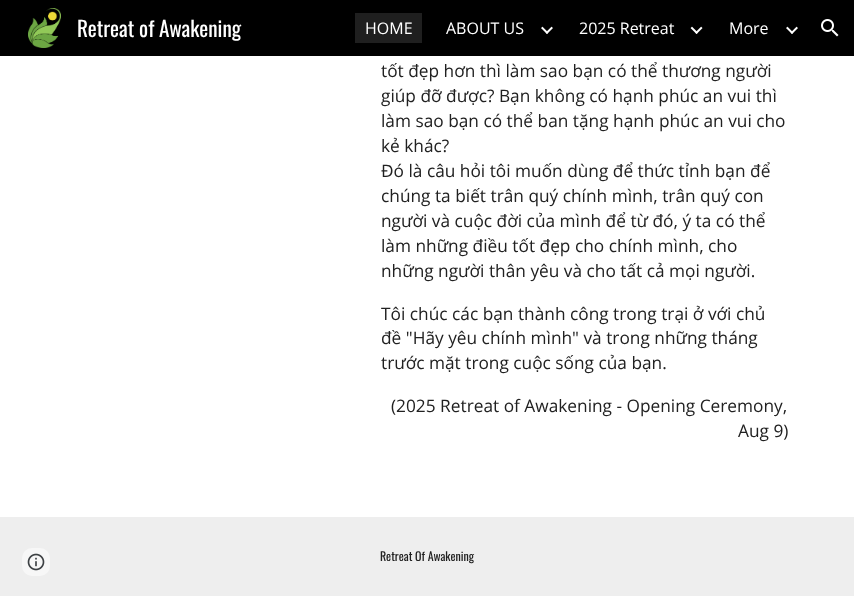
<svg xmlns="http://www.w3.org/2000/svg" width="854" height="596">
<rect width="100%" height="100%" fill="#fff"/>
<rect width="854" height="56" fill="#000"/>
<image x="28" y="8" width="33" height="40" href="media/1.png"/>
<text x="77" y="37" style="font-family:Oswald;font-size:21.25px;fill:#fff">Retreat of Awakening</text>
<rect x="355" y="13" width="67" height="30" fill="#1f1f1f"/>
<text x="365" y="34" style="font-family:Open Sans;font-size:16px;fill:#fff">HOME</text>
<text x="446" y="34" style="font-family:Open Sans;font-size:16px;fill:#fff">ABOUT US</text>
<image x="541" y="26" width="12" height="8" href="media/2.png"/>
<text x="579" y="34" style="font-family:Open Sans;font-size:16px;fill:#fff">2025 Retreat</text>
<image x="690" y="26" width="13" height="8" href="media/3.png"/>
<text x="729" y="34" style="font-family:Open Sans;font-size:16px;fill:#fff">More</text>
<image x="786" y="26" width="12" height="8" href="media/4.png"/>
<image x="821" y="19" width="18" height="18" href="media/5.png"/>
<text x="381" y="77" style="font-family:Open Sans;font-size:17.3px;fill:#212121">tốt đẹp hơn thì làm sao bạn có thể thương người</text>
<text x="381" y="102" style="font-family:Open Sans;font-size:17.3px;fill:#212121">giúp đỡ được? Bạn không có hạnh phúc an vui thì</text>
<text x="381" y="127" style="font-family:Open Sans;font-size:17.3px;fill:#212121">làm sao bạn có thể ban tặng hạnh phúc an vui cho</text>
<text x="381" y="152" style="font-family:Open Sans;font-size:17.3px;fill:#212121">kẻ khác?</text>
<text x="381" y="177" style="font-family:Open Sans;font-size:17.3px;fill:#212121">Đó là câu hỏi tôi muốn dùng để thức tỉnh bạn để</text>
<text x="381" y="202" style="font-family:Open Sans;font-size:17.3px;fill:#212121">chúng ta biết trân quý chính mình, trân quý con</text>
<text x="381" y="227" style="font-family:Open Sans;font-size:17.3px;fill:#212121">người và cuộc đời của mình để từ đó, ý ta có thể</text>
<text x="381" y="252" style="font-family:Open Sans;font-size:17.3px;fill:#212121">làm những điều tốt đẹp cho chính mình, cho</text>
<text x="381" y="277" style="font-family:Open Sans;font-size:17.3px;fill:#212121">những người thân yêu và cho tất cả mọi người.</text>
<text x="381" y="320" style="font-family:Open Sans;font-size:17.3px;fill:#212121">Tôi chúc các bạn thành công trong trại ở với chủ</text>
<text x="381" y="344" style="font-family:Open Sans;font-size:17.3px;fill:#212121">đề "Hãy yêu chính mình" và trong những tháng</text>
<text x="381" y="369" style="font-family:Open Sans;font-size:17.3px;fill:#212121">trước mặt trong cuộc sống của bạn.</text>
<text x="391" y="412" style="font-family:Open Sans;font-size:17.3px;fill:#212121">(2025 Retreat of Awakening - Opening Ceremony,</text>
<text x="738" y="437" style="font-family:Open Sans;font-size:17.3px;fill:#212121">Aug 9)</text>
<rect y="517" width="854" height="79" fill="#eee"/>
<rect x="22" y="548" width="28" height="28" rx="10" fill="#f7f7f7"/>
<image x="27" y="553" width="18" height="18" href="media/6.png"/>
<text x="380" y="561" style="font-family:Oswald;font-size:12px;fill:#212121">Retreat Of Awakening</text>
</svg>
